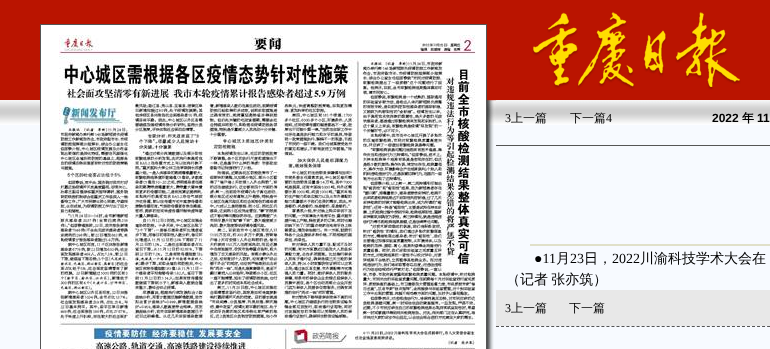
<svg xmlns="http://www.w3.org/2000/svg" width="770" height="349">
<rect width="100%" height="100%" fill="#f7faff"/>
<image x="0" y="100" width="770" height="25" href="media/1.png"/>
<rect width="40" height="100" fill="#ba1400"/>
<rect x="40" width="447" height="24" fill="#ba1400"/>
<image x="487" y="125" width="9" height="224" href="media/2.png"/>
<image x="487" y="0" width="9" height="125" href="media/3.png"/>
<rect x="40.5" y="24.5" width="446" height="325" fill="#fff" stroke="#555"/>
<image x="59" y="35" width="417" height="314" href="media/4.png"/>
<image x="496" y="0" width="274" height="100" href="media/5.png"/>
<rect x="496" y="145" width="274" height="1" fill="#555"/>
<text x="505" y="122" style="font-family:Liberation Serif;font-size:12px;fill:#000">3</text>
<text x="511" y="122" style="font-family:WenQuanYi Zen Hei;font-size:12px;font-weight:500;fill:#000">上一篇</text>
<text x="570" y="122" style="font-family:WenQuanYi Zen Hei;font-size:12px;font-weight:500;fill:#000">下一篇</text>
<text x="606" y="122" style="font-family:Liberation Serif;font-size:12px;fill:#000">4</text>
<text x="712" y="122" style="font-family:Liberation Sans;font-size:12px;font-weight:bold;fill:#000">2022</text>
<text x="742" y="122" style="font-family:WenQuanYi Zen Hei;font-size:12px;font-weight:bold;fill:#000">年</text>
<text x="757" y="122" style="font-family:Liberation Sans;font-size:12px;font-weight:bold;fill:#000">11</text>
<rect x="530" y="244" width="240" height="2" fill="#e0e0c9"/>
<text x="534" y="263" style="font-family:Liberation Serif;font-size:14px;fill:#000">●11</text>
<text x="556" y="263" style="font-family:WenQuanYi Zen Hei;font-size:14px;font-weight:500;fill:#000">月</text>
<text x="570" y="263" style="font-family:Liberation Serif;font-size:14px;fill:#000">23</text>
<text x="584" y="263" style="font-family:WenQuanYi Zen Hei;font-size:14px;font-weight:500;fill:#000">日，</text>
<text x="612" y="263" style="font-family:Liberation Serif;font-size:14px;fill:#000">2022</text>
<text x="640" y="263" style="font-family:WenQuanYi Zen Hei;font-size:14px;font-weight:500;fill:#000">川渝科技学术大会在</text>
<text x="506" y="284" word-spacing="-1" style="font-family:WenQuanYi Zen Hei;font-size:14px;font-weight:500;fill:#000">（记者 张亦筑）</text>
<path d="M496 326.5h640" fill="none" stroke="#555" stroke-dasharray="3 2.02"/>
<rect x="496" y="290" width="274" height="36" fill="#e8e8e8"/>
<text x="505" y="312" style="font-family:Liberation Serif;font-size:12px;fill:#000">3</text>
<text x="511" y="312" style="font-family:WenQuanYi Zen Hei;font-size:12px;font-weight:500;fill:#000">上一篇</text>
<text x="569" y="312" style="font-family:WenQuanYi Zen Hei;font-size:12px;font-weight:500;fill:#000">下一篇</text>
</svg>
